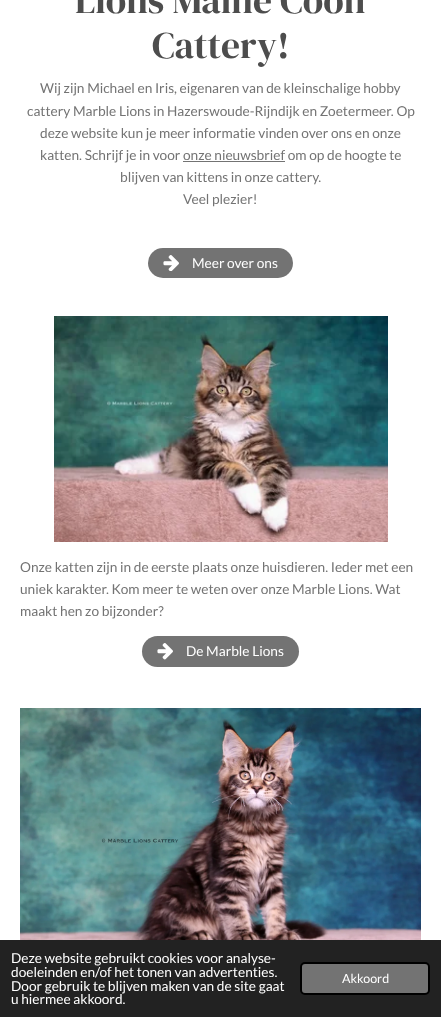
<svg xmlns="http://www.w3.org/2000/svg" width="441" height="1017">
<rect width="100%" height="100%" fill="#fff"/>
<text x="75" y="13" style="font-family:DM Serif Display;font-size:37.5px;fill:#4d4d4d">Lions Maine Coon</text>
<text x="152" y="58" style="font-family:DM Serif Display;font-size:37.5px;fill:#4d4d4d">Cattery!</text>
<text x="40" y="93" style="font-family:Lato;font-size:13.7px;fill:#737373">Wij zijn Michael en Iris, eigenaren van de kleinschalige hobby</text>
<text x="27" y="116" style="font-family:Lato;font-size:13.7px;fill:#737373">cattery Marble Lions in Hazerswoude-Rijndijk en Zoetermeer. Op</text>
<text x="40" y="138" style="font-family:Lato;font-size:13.7px;fill:#737373">deze website kun je meer informatie vinden over ons en onze</text>
<text x="40" y="160" style="font-family:Lato;font-size:13.7px;fill:#737373">katten. Schrijf je in voor onze nieuwsbrief om op de hoogte te</text>
<rect x="183" y="161" width="102" height="1" fill="#737373"/>
<text x="120" y="182" style="font-family:Lato;font-size:13.7px;fill:#737373">blijven van kittens in onze cattery.</text>
<text x="183" y="204" style="font-family:Lato;font-size:13.7px;fill:#737373">Veel plezier!</text>
<rect x="148" y="248" width="145" height="30" rx="15" fill="#737373"/>
<image x="163" y="255" width="16" height="16" href="media/1.png"/>
<text x="192" y="268" style="font-family:Lato;font-size:13.7px;fill:#fff">Meer over ons</text>
<image x="54" y="316" width="334" height="226" href="media/2.png"/>
<text x="20" y="572" style="font-family:Lato;font-size:13.7px;fill:#737373">Onze katten zijn in de eerste plaats onze huisdieren. Ieder met een</text>
<text x="20" y="594" style="font-family:Lato;font-size:13.7px;fill:#737373">uniek karakter. Kom meer te weten over onze Marble Lions. Wat</text>
<text x="20" y="616" style="font-family:Lato;font-size:13.7px;fill:#737373">maakt hen zo bijzonder?</text>
<rect x="142" y="636" width="157" height="31" rx="15.5" fill="#737373"/>
<image x="157" y="643" width="16" height="17" href="media/3.png"/>
<text x="186" y="656" style="font-family:Lato;font-size:13.7px;fill:#fff">De Marble Lions</text>
<image x="20" y="708" width="401" height="232" href="media/4.png"/>
<rect y="940" width="441" height="77" fill="#222"/>
<text x="11" y="963" style="font-family:Lato;font-size:13.7px;fill:#fff">Deze website gebruikt cookies voor analyse-</text>
<text x="11" y="977" style="font-family:Lato;font-size:13.7px;fill:#fff">doeleinden en/of het tonen van advertenties.</text>
<text x="11" y="991" style="font-family:Lato;font-size:13.7px;fill:#fff">Door gebruik te blijven maken van de site gaat</text>
<text x="11" y="1004" style="font-family:Lato;font-size:13.7px;fill:#fff">u hiermee akkoord.</text>
<rect x="301" y="963" width="128" height="31" rx="4" fill="#737373" stroke="#000" stroke-width="2"/>
<text x="342" y="983" style="font-family:Lato;font-size:12.5px;fill:#fff">Akkoord</text>
</svg>
